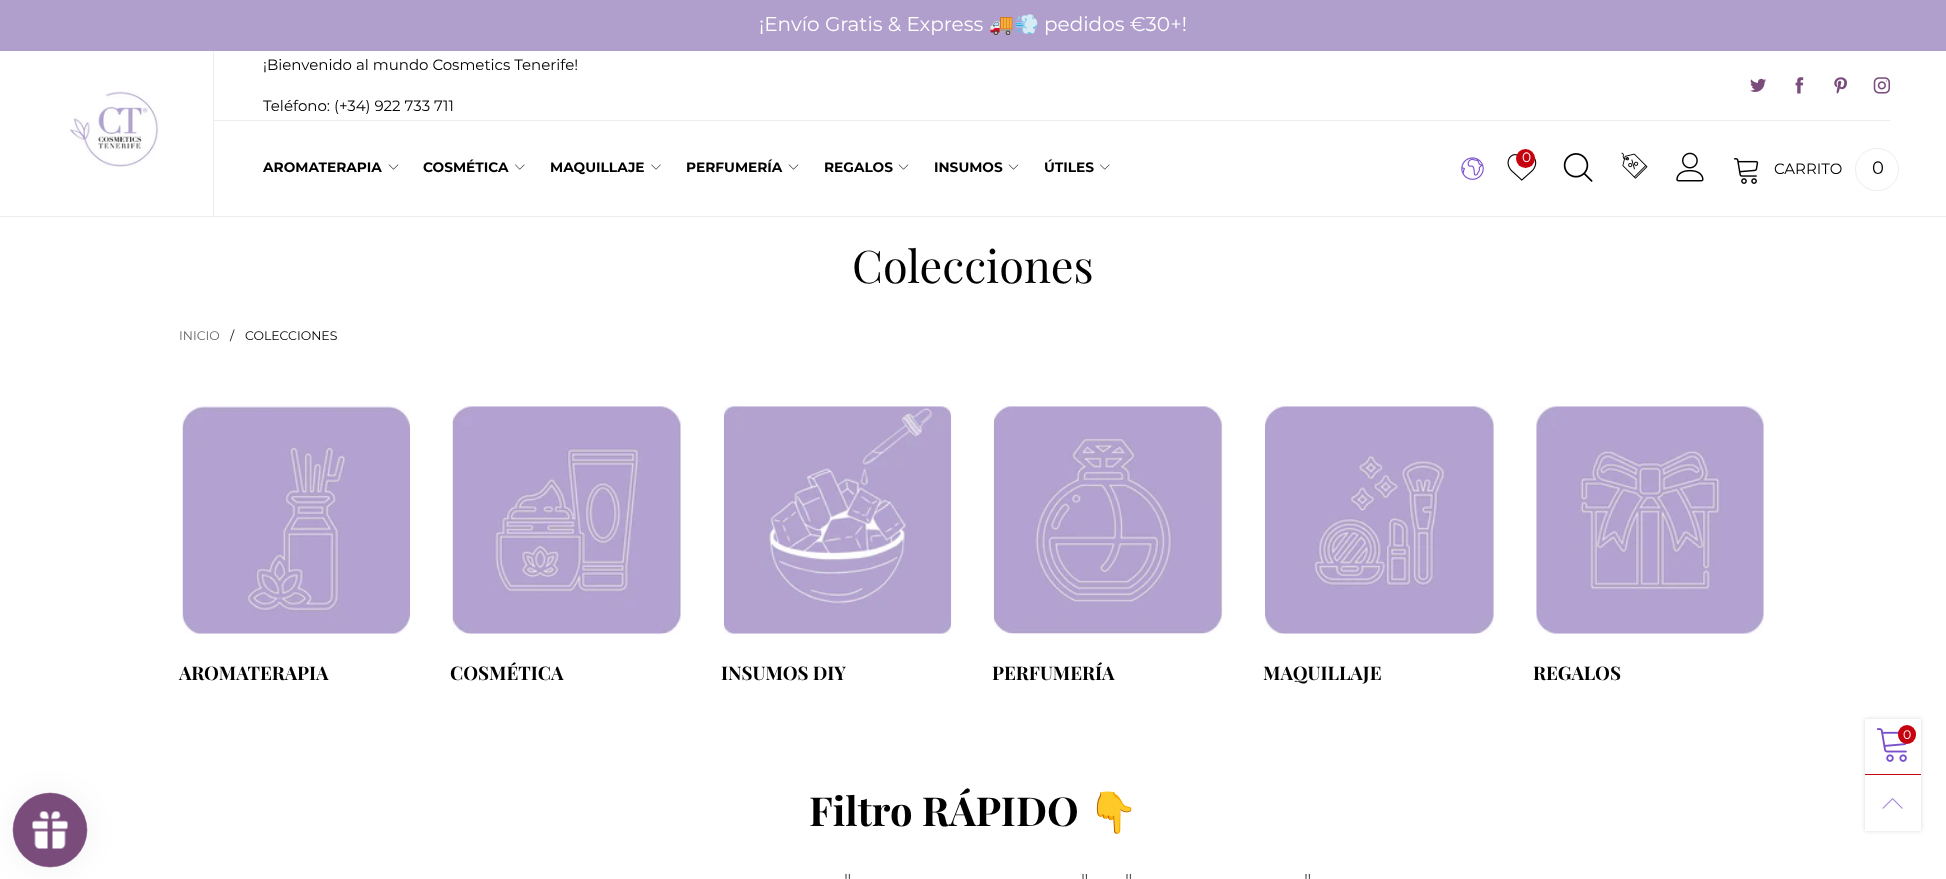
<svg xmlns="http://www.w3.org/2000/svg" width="1946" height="879">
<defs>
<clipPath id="clip1"><path d="M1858 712h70v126h-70zm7 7h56v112h-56z" clip-rule="evenodd"/></clipPath>
</defs>
<rect width="100%" height="100%" fill="#fff"/>
<rect width="1946" height="51" fill="#b09fcc"/>
<text x="759" y="31" style="font-family:Montserrat;font-size:20px;fill:#fff">¡Envío Gratis &amp; Express</text>
<text x="989" y="31" style="font-family:Noto Color Emoji;font-size:20px;fill:#fff">🚚💨</text>
<text x="1044" y="31" style="font-family:Montserrat;font-size:20px;fill:#fff">pedidos €30+!</text>
<rect y="216" width="1946" height="1" fill="#ededed"/>
<image x="69" y="91" width="90" height="76" href="media/1.png"/>
<rect x="213" y="51" width="1" height="165" fill="#ededed"/>
<rect x="214" y="120" width="1676" height="1" fill="#ededed"/>
<text x="263" y="70" style="font-family:Montserrat;font-size:15px;fill:#000">¡Bienvenido al mundo Cosmetics Tenerife!</text>
<text x="263" y="111" style="font-family:Montserrat;font-size:15px;fill:#000">Teléfono: (+34) 922 733 711</text>
<image x="1750" y="78" width="17" height="14" href="media/2.png"/>
<image x="1795" y="77" width="9" height="17" href="media/3.png"/>
<image x="1834" y="77" width="13" height="17" href="media/4.png"/>
<image x="1873" y="77" width="17" height="17" href="media/5.png"/>
<text x="263" y="172" style="font-family:Montserrat;font-size:13.75px;font-weight:bold;fill:#000">AROMATERAPIA</text>
<image x="388" y="164" width="11" height="6" href="media/6.png"/>
<text x="423" y="172" style="font-family:Montserrat;font-size:13.75px;font-weight:bold;fill:#000">COSMÉTICA</text>
<image x="515" y="164" width="10" height="6" href="media/7.png"/>
<text x="550" y="172" style="font-family:Montserrat;font-size:13.75px;font-weight:bold;fill:#000">MAQUILLAJE</text>
<image x="651" y="164" width="10" height="6" href="media/8.png"/>
<text x="686" y="172" style="font-family:Montserrat;font-size:13.75px;font-weight:bold;fill:#000">PERFUMERÍA</text>
<image x="788" y="164" width="11" height="6" href="media/6.png"/>
<text x="824" y="172" style="font-family:Montserrat;font-size:13.75px;font-weight:bold;fill:#000">REGALOS</text>
<image x="898" y="164" width="11" height="6" href="media/6.png"/>
<text x="934" y="172" style="font-family:Montserrat;font-size:13.75px;font-weight:bold;fill:#000">INSUMOS</text>
<image x="1008" y="164" width="11" height="6" href="media/6.png"/>
<text x="1044" y="172" style="font-family:Montserrat;font-size:13.75px;font-weight:bold;fill:#000">ÚTILES</text>
<image x="1100" y="164" width="10" height="6" href="media/7.png"/>
<image x="1461" y="157" width="23" height="23" href="media/9.png"/>
<image x="1507" y="154" width="30" height="27" href="media/10.png"/>
<circle cx="1525.5" cy="158.5" r="9.5" fill="#c7020f"/>
<text x="1522" y="162" style="font-family:Montserrat;font-size:13.75px;fill:#fff">0</text>
<image x="1563" y="153" width="30" height="29" href="media/11.png"/>
<image x="1621" y="152" width="27" height="27" href="media/12.png"/>
<image x="1676" y="152" width="28" height="30" href="media/13.png"/>
<image x="1734" y="158" width="25" height="26" href="media/14.png"/>
<text x="1774" y="174" style="font-family:Montserrat;font-size:15px;fill:#000">CARRITO</text>
<rect x="1855.5" y="148.5" width="43" height="42" rx="21" fill="none" stroke="#ededed"/>
<text x="1872" y="174" style="font-family:Montserrat;font-size:18px;fill:#000">0</text>
<text x="852" y="283" style="font-family:Playfair Display;font-size:45px;fill:#000">Colecciones</text>
<text x="179" y="340" style="font-family:Montserrat;font-size:12.5px;fill:#666">INICIO</text>
<text x="230" y="340" style="font-family:Montserrat;font-size:12.5px;fill:#000">/</text>
<text x="245" y="340" style="font-family:Montserrat;font-size:12.5px;fill:#000">COLECCIONES</text>
<image x="182" y="406" width="228" height="228" href="media/15.png"/>
<text x="179" y="680" style="font-family:Playfair Display;font-size:18.75px;font-weight:bold;fill:#000">AROMATERAPIA</text>
<image x="452" y="406" width="229" height="228" href="media/16.png"/>
<text x="450" y="680" style="font-family:Playfair Display;font-size:18.75px;font-weight:bold;fill:#000">COSMÉTICA</text>
<image x="723" y="406" width="229" height="228" href="media/17.png"/>
<text x="721" y="680" style="font-family:Playfair Display;font-size:18.75px;font-weight:bold;fill:#000">INSUMOS DIY</text>
<image x="993" y="406" width="230" height="228" href="media/18.png"/>
<text x="992" y="680" style="font-family:Playfair Display;font-size:18.75px;font-weight:bold;fill:#000">PERFUMERÍA</text>
<image x="1265" y="406" width="229" height="228" href="media/19.png"/>
<text x="1263" y="680" style="font-family:Playfair Display;font-size:18.75px;font-weight:bold;fill:#000">MAQUILLAJE</text>
<image x="1536" y="406" width="228" height="228" href="media/20.png"/>
<text x="1533" y="680" style="font-family:Playfair Display;font-size:18.75px;font-weight:bold;fill:#000">REGALOS</text>
<text x="809" y="826" style="font-family:Playfair Display;font-size:40px;font-weight:bold;fill:#000">Filtro RÁPIDO</text>
<text x="1088" y="826" style="font-family:Noto Color Emoji;font-size:40px;font-weight:bold;fill:#000">👇</text>
<text x="844" y="888" style="font-family:Montserrat;font-size:20px;fill:#555">"</text>
<text x="1081" y="888" style="font-family:Montserrat;font-size:20px;fill:#555">"</text>
<text x="1125" y="888" style="font-family:Montserrat;font-size:20px;fill:#555">"</text>
<text x="1304" y="888" style="font-family:Montserrat;font-size:20px;fill:#555">"</text>
<g clip-path="url(#clip1)">
<rect x="1865" y="719" width="56" height="112" fill="#00000026" filter="blur(2px)"/>
</g>
<rect x="1865" y="774" width="56" height="1" fill="#c7020f"/>
<image x="1876" y="728" width="31" height="34" href="media/21.png"/>
<rect x="1898" y="725" width="18" height="19" rx="9" fill="#c7020f"/>
<text x="1903" y="739" style="font-family:Montserrat;font-size:12.5px;fill:#fff">0</text>
<image x="1882" y="798" width="21" height="11" href="media/22.png"/>
<rect x="13" y="793" width="75" height="75" rx="37.5" fill="#0000000d" filter="blur(15.5px)"/>
<image x="12" y="792" width="76" height="76" href="media/23.png"/>
</svg>
